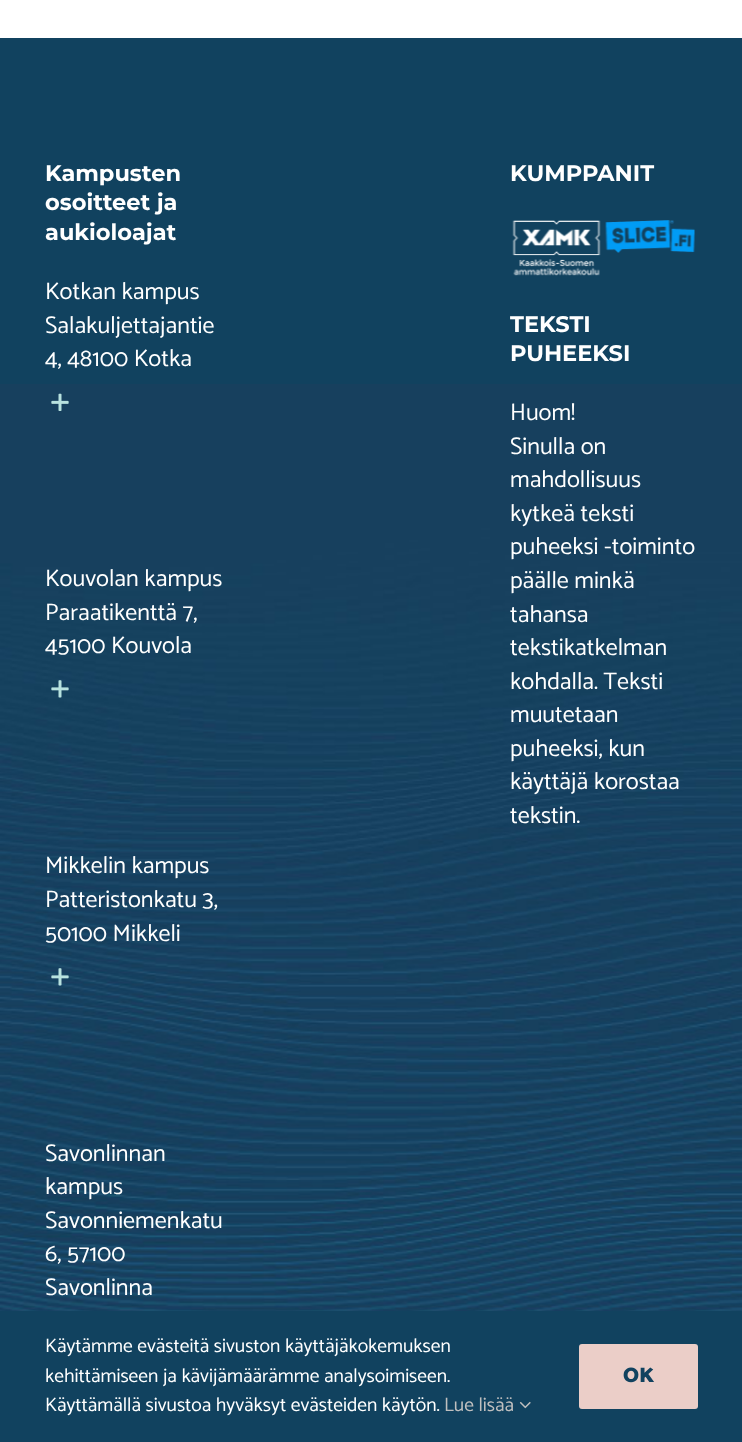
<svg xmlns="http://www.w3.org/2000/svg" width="742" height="1442">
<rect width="100%" height="100%" fill="#fff"/>
<rect y="38" width="742" height="346" fill="#11425f"/>
<image x="0" y="384" width="742" height="927" href="media/1.png"/>
<text x="45" y="181" style="font-family:Montserrat;font-size:22.5px;font-weight:bold;fill:#fff">Kampusten</text>
<text x="45" y="210" style="font-family:Montserrat;font-size:22.5px;font-weight:bold;fill:#fff">osoitteet ja</text>
<text x="45" y="240" style="font-family:Montserrat;font-size:22.5px;font-weight:bold;fill:#fff">aukioloajat</text>
<text x="45" y="299" style="font-family:Catamaran;font-size:24px;fill:#fff">Kotkan kampus</text>
<text x="45" y="333" style="font-family:Catamaran;font-size:24px;fill:#fff">Salakuljettajantie</text>
<text x="45" y="366" style="font-family:Catamaran;font-size:24px;fill:#fff">4, 48100 Kotka</text>
<image x="51" y="393" width="18" height="18" href="media/2.png"/>
<text x="45" y="586" style="font-family:Catamaran;font-size:24px;fill:#fff">Kouvolan kampus</text>
<text x="45" y="620" style="font-family:Catamaran;font-size:24px;fill:#fff">Paraatikenttä 7,</text>
<text x="45" y="653" style="font-family:Catamaran;font-size:24px;fill:#fff">45100 Kouvola</text>
<image x="51" y="680" width="18" height="18" href="media/3.png"/>
<text x="45" y="873" style="font-family:Catamaran;font-size:24px;fill:#fff">Mikkelin kampus</text>
<text x="45" y="907" style="font-family:Catamaran;font-size:24px;fill:#fff">Patteristonkatu 3,</text>
<text x="45" y="941" style="font-family:Catamaran;font-size:24px;fill:#fff">50100 Mikkeli</text>
<image x="51" y="968" width="18" height="18" href="media/4.png"/>
<text x="45" y="1161" style="font-family:Catamaran;font-size:24px;fill:#fff">Savonlinnan</text>
<text x="45" y="1194" style="font-family:Catamaran;font-size:24px;fill:#fff">kampus</text>
<text x="45" y="1228" style="font-family:Catamaran;font-size:24px;fill:#fff">Savonniemenkatu</text>
<text x="45" y="1261" style="font-family:Catamaran;font-size:24px;fill:#fff">6, 57100</text>
<text x="45" y="1295" style="font-family:Catamaran;font-size:24px;fill:#fff">Savonlinna</text>
<text x="510" y="181" style="font-family:Montserrat;font-size:22.5px;font-weight:bold;fill:#fff">KUMPPANIT</text>
<image x="512" y="220" width="89" height="56" href="media/5.png"/>
<image x="605" y="220" width="90" height="33" href="media/6.png"/>
<text x="510" y="332" style="font-family:Montserrat;font-size:22.5px;font-weight:bold;fill:#fff">TEKSTI</text>
<text x="510" y="361" style="font-family:Montserrat;font-size:22.5px;font-weight:bold;fill:#fff">PUHEEKSI</text>
<text x="510" y="420" style="font-family:Catamaran;font-size:24px;fill:#fff">Huom!</text>
<text x="510" y="454" style="font-family:Catamaran;font-size:24px;fill:#fff">Sinulla on</text>
<text x="510" y="487" style="font-family:Catamaran;font-size:24px;fill:#fff">mahdollisuus</text>
<text x="510" y="521" style="font-family:Catamaran;font-size:24px;fill:#fff">kytkeä teksti</text>
<text x="510" y="554" style="font-family:Catamaran;font-size:24px;fill:#fff">puheeksi -toiminto</text>
<text x="510" y="588" style="font-family:Catamaran;font-size:24px;fill:#fff">päälle minkä</text>
<text x="510" y="622" style="font-family:Catamaran;font-size:24px;fill:#fff">tahansa</text>
<text x="510" y="655" style="font-family:Catamaran;font-size:24px;fill:#fff">tekstikatkelman</text>
<text x="510" y="689" style="font-family:Catamaran;font-size:24px;fill:#fff">kohdalla. Teksti</text>
<text x="510" y="722" style="font-family:Catamaran;font-size:24px;fill:#fff">muutetaan</text>
<text x="510" y="756" style="font-family:Catamaran;font-size:24px;fill:#fff">puheeksi, kun</text>
<text x="510" y="789" style="font-family:Catamaran;font-size:24px;fill:#fff">käyttäjä korostaa</text>
<text x="510" y="823" style="font-family:Catamaran;font-size:24px;fill:#fff">tekstin.</text>
<rect y="1311" width="742" height="131" fill="#11425f"/>
<text x="45" y="1352" style="font-family:Catamaran;font-size:19.5px;fill:#fff">Käytämme evästeitä sivuston käyttäjäkokemuksen</text>
<text x="45" y="1382" style="font-family:Catamaran;font-size:19.5px;fill:#fff">kehittämiseen ja kävijämäärämme analysoimiseen.</text>
<text x="45" y="1411" style="font-family:Catamaran;font-size:19.5px;fill:#fff">Käyttämällä sivustoa hyväksyt evästeiden käytön.</text>
<text x="444" y="1411" style="font-family:Catamaran;font-size:19.5px;fill:#bfbfbf">Lue lisää</text>
<image x="519" y="1401" width="12" height="8" href="media/7.png"/>
<rect x="579" y="1344" width="119" height="65" rx="3" fill="#ebcec8"/>
<text x="623" y="1382" style="font-family:Catamaran;font-size:21px;font-weight:900;fill:#11425f">OK</text>
</svg>
